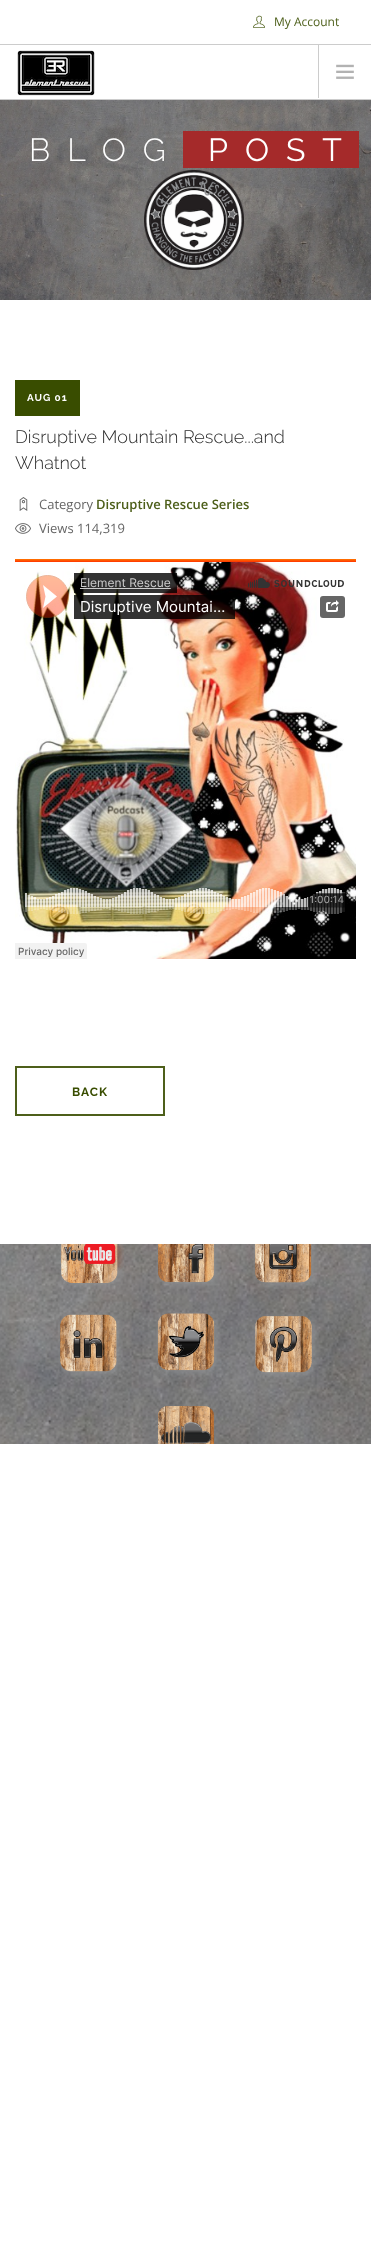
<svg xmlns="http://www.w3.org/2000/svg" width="371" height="2266">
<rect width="100%" height="100%" fill="#fff"/>
<rect y="44" width="371" height="1" fill="#ccc"/>
<image x="253" y="15" width="12" height="13" href="media/1.png"/>
<text x="274" y="26" style="font-family:Open Sans;font-size:12px;fill:#4d5f1a">My Account</text>
<rect y="99" width="371" height="1" fill="#ccc"/>
<image x="17" y="50" width="78" height="46" href="media/2.png"/>
<rect x="318" y="45" width="1" height="53" fill="#ccc"/>
<image x="336" y="64" width="18" height="15" href="media/3.png"/>
<image x="0" y="100" width="371" height="200" href="media/4.png"/>
<text x="29" y="161" style="font-family:Raleway;font-size:32px;font-weight:300;letter-spacing:17px;fill:#fff">BLOG</text>
<rect x="183" y="131" width="176" height="37" fill="#a52a2a"/>
<text x="208" y="161" style="font-family:Raleway;font-size:32px;letter-spacing:17px;fill:#fff">POST</text>
<image x="144" y="170" width="100" height="100" href="media/5.png"/>
<rect x="15" y="380" width="65" height="36" fill="#394d00"/>
<text x="27" y="401" style="font-family:Raleway;font-size:10px;font-weight:bold;letter-spacing:1px;fill:#fff">AUG 01</text>
<text x="15" y="443" style="font-family:Raleway;font-size:18px;font-weight:300;fill:#292929">Disruptive Mountain Rescue...and</text>
<text x="15" y="469" style="font-family:Raleway;font-size:18px;font-weight:300;fill:#292929">Whatnot</text>
<image x="19" y="497" width="9" height="14" href="media/6.png"/>
<text x="39" y="509" style="font-family:Open Sans;font-size:13px;fill:#666">Category</text>
<text x="96" y="509" style="font-family:Open Sans;font-size:13px;font-weight:600;fill:#4d5f1a">Disruptive Rescue Series</text>
<image x="15" y="523" width="16" height="11" href="media/7.png"/>
<text x="39" y="533" style="font-family:Open Sans;font-size:13px;fill:#666">Views 114,319</text>
<image x="15" y="559" width="341" height="400" href="media/8.png"/>
<rect x="16" y="1067" width="148" height="48" fill="none" stroke="#4d5f1a" stroke-width="2"/>
<text x="72" y="1096" style="font-family:Raleway;font-size:12px;font-weight:bold;letter-spacing:1px;fill:#394d00">BACK</text>
<image x="0" y="1244" width="371" height="200" href="media/9.png"/>
<image x="60" y="1244" width="64" height="46" href="media/10.png"/>
<image x="156" y="1244" width="65" height="45" href="media/11.png"/>
<image x="253" y="1244" width="64" height="45" href="media/12.png"/>
<image x="58" y="1313" width="65" height="65" href="media/13.png"/>
<image x="156" y="1312" width="65" height="65" href="media/14.png"/>
<image x="254" y="1314" width="65" height="65" href="media/15.png"/>
<image x="158" y="1406" width="57" height="38" href="media/16.png"/>
</svg>
